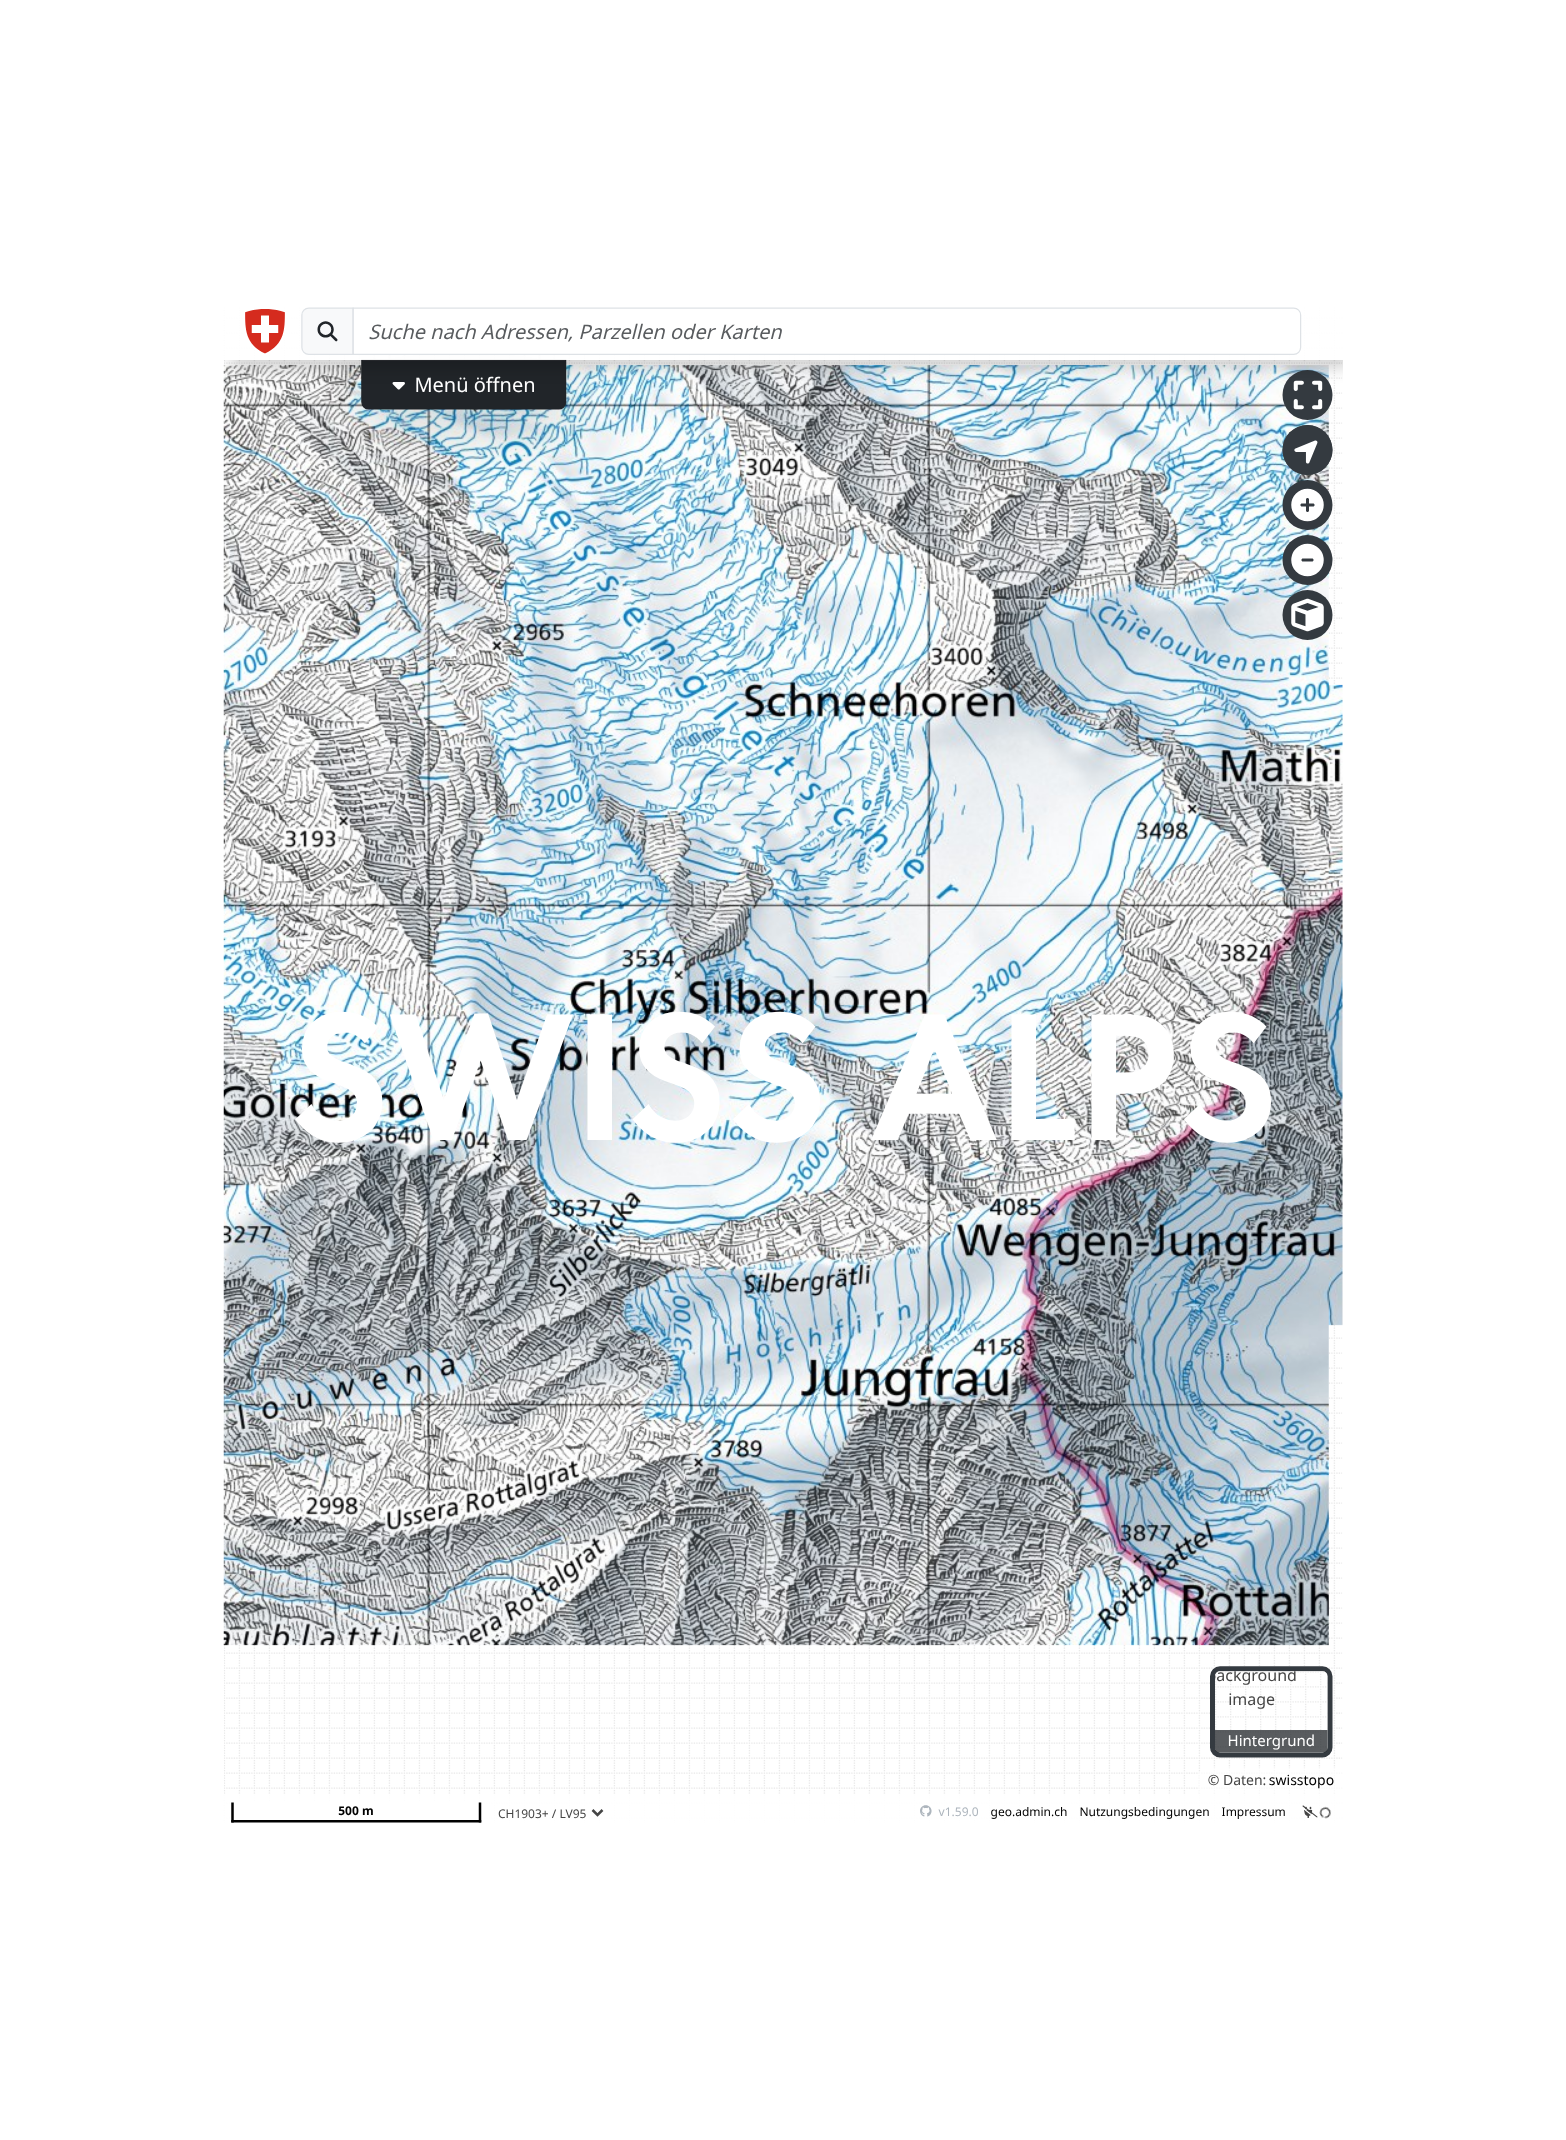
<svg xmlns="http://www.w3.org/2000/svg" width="1566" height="2140">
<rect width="100%" height="100%" fill="#fff"/>
<image x="223" y="307" width="1120" height="1516" href="media/1.png"/>
<text x="289" y="1140" style="font-family:Futura PT;font-size:188px;font-weight:500;fill:#fff">SWISS ALPS</text>
</svg>
